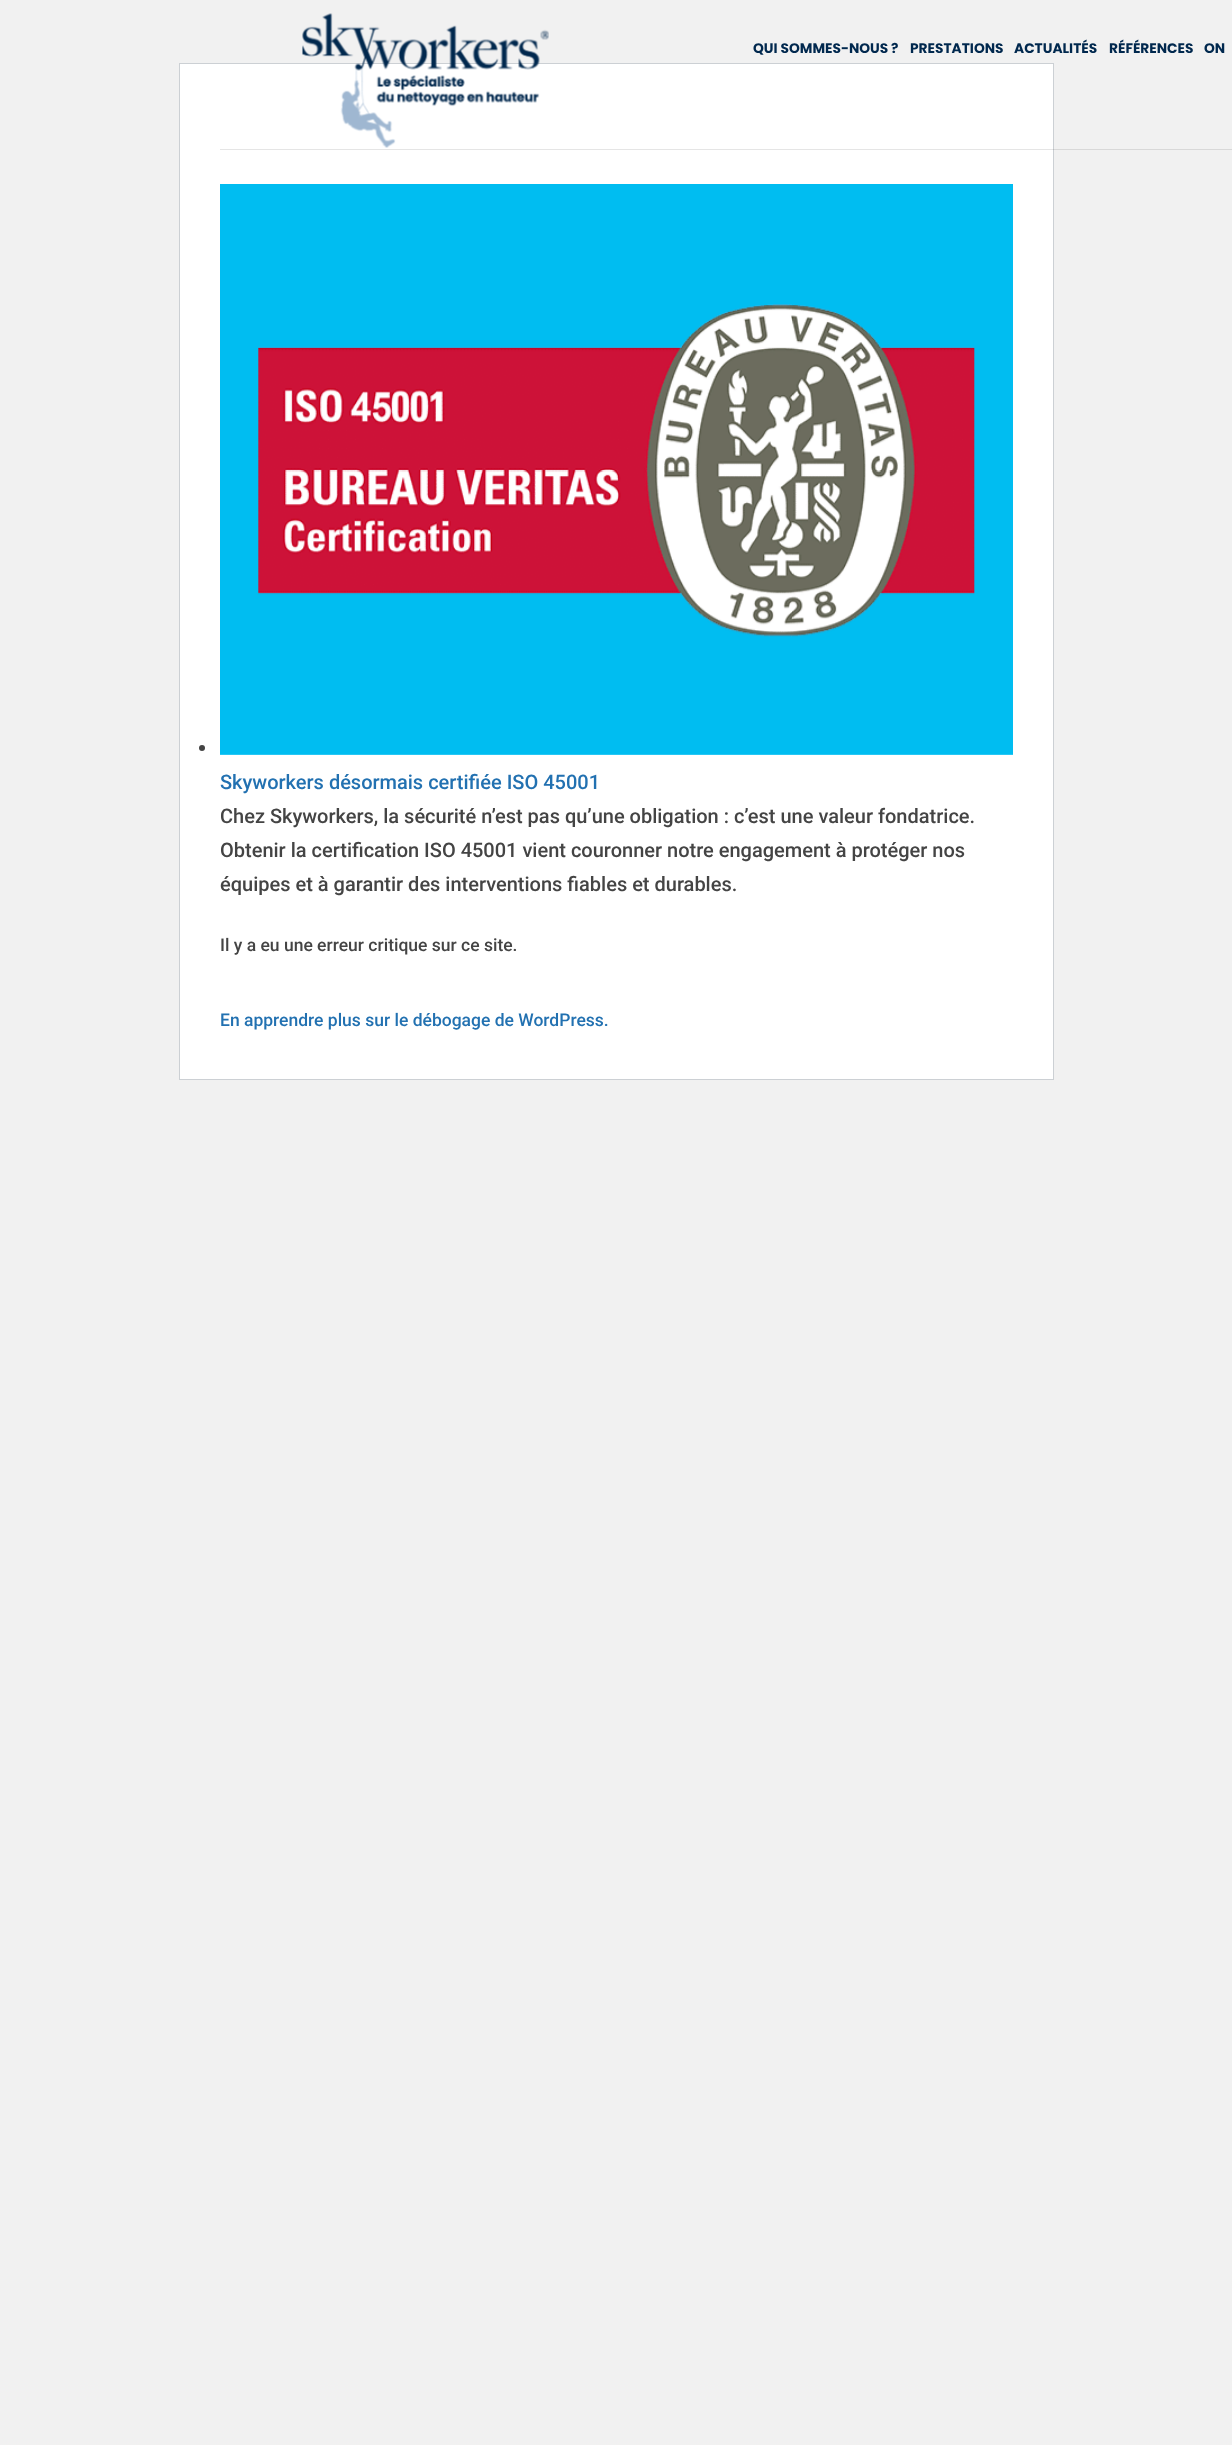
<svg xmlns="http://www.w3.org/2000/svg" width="1232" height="2445">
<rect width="100%" height="100%" fill="#f1f1f1"/>
<rect x="179.5" y="63.5" width="874" height="1016" fill="#fff" stroke="#ccd0d4"/>
<path d="M220 149v1h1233v-149h-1v148z" fill="#0000001a"/>
<image x="302" y="13" width="247" height="135" href="media/1.png"/>
<text x="753" y="53" style="font-family:Poppins;font-size:13.75px;font-weight:bold;fill:#00284e">QUI SOMMES-NOUS ?</text>
<text x="910" y="53" style="font-family:Poppins;font-size:13.75px;font-weight:bold;fill:#00284e">PRESTATIONS</text>
<text x="1014" y="53" style="font-family:Poppins;font-size:13.75px;font-weight:bold;fill:#00284e">ACTUALITÉS</text>
<text x="1109" y="53" style="font-family:Poppins;font-size:13.75px;font-weight:bold;fill:#00284e">RÉFÉRENCES</text>
<text x="1204" y="53" style="font-family:Poppins;font-size:13.75px;font-weight:bold;fill:#00284e">ON</text>
<circle cx="202" cy="748" r="3" fill="#444"/>
<image x="220" y="184" width="793" height="571" href="media/2.png"/>
<text x="220" y="789" style="font-family:Roboto;font-size:20px;font-weight:500;fill:#2271b1">Skyworkers désormais certifiée ISO 45001</text>
<text x="220" y="823" style="font-family:Roboto;font-size:20px;font-weight:500;fill:#444">Chez Skyworkers, la sécurité n’est pas qu’une obligation : c’est une valeur fondatrice.</text>
<text x="220" y="857" style="font-family:Roboto;font-size:20px;font-weight:500;fill:#444">Obtenir la certification ISO 45001 vient couronner notre engagement à protéger nos</text>
<text x="220" y="891" style="font-family:Roboto;font-size:20px;font-weight:500;fill:#444">équipes et à garantir des interventions fiables et durables.</text>
<text x="220" y="951" style="font-family:Roboto;font-size:17.5px;font-weight:500;fill:#444">Il y a eu une erreur critique sur ce site.</text>
<text x="220" y="1026" style="font-family:Roboto;font-size:17.5px;font-weight:500;fill:#2271b1">En apprendre plus sur le débogage de WordPress.</text>
</svg>
